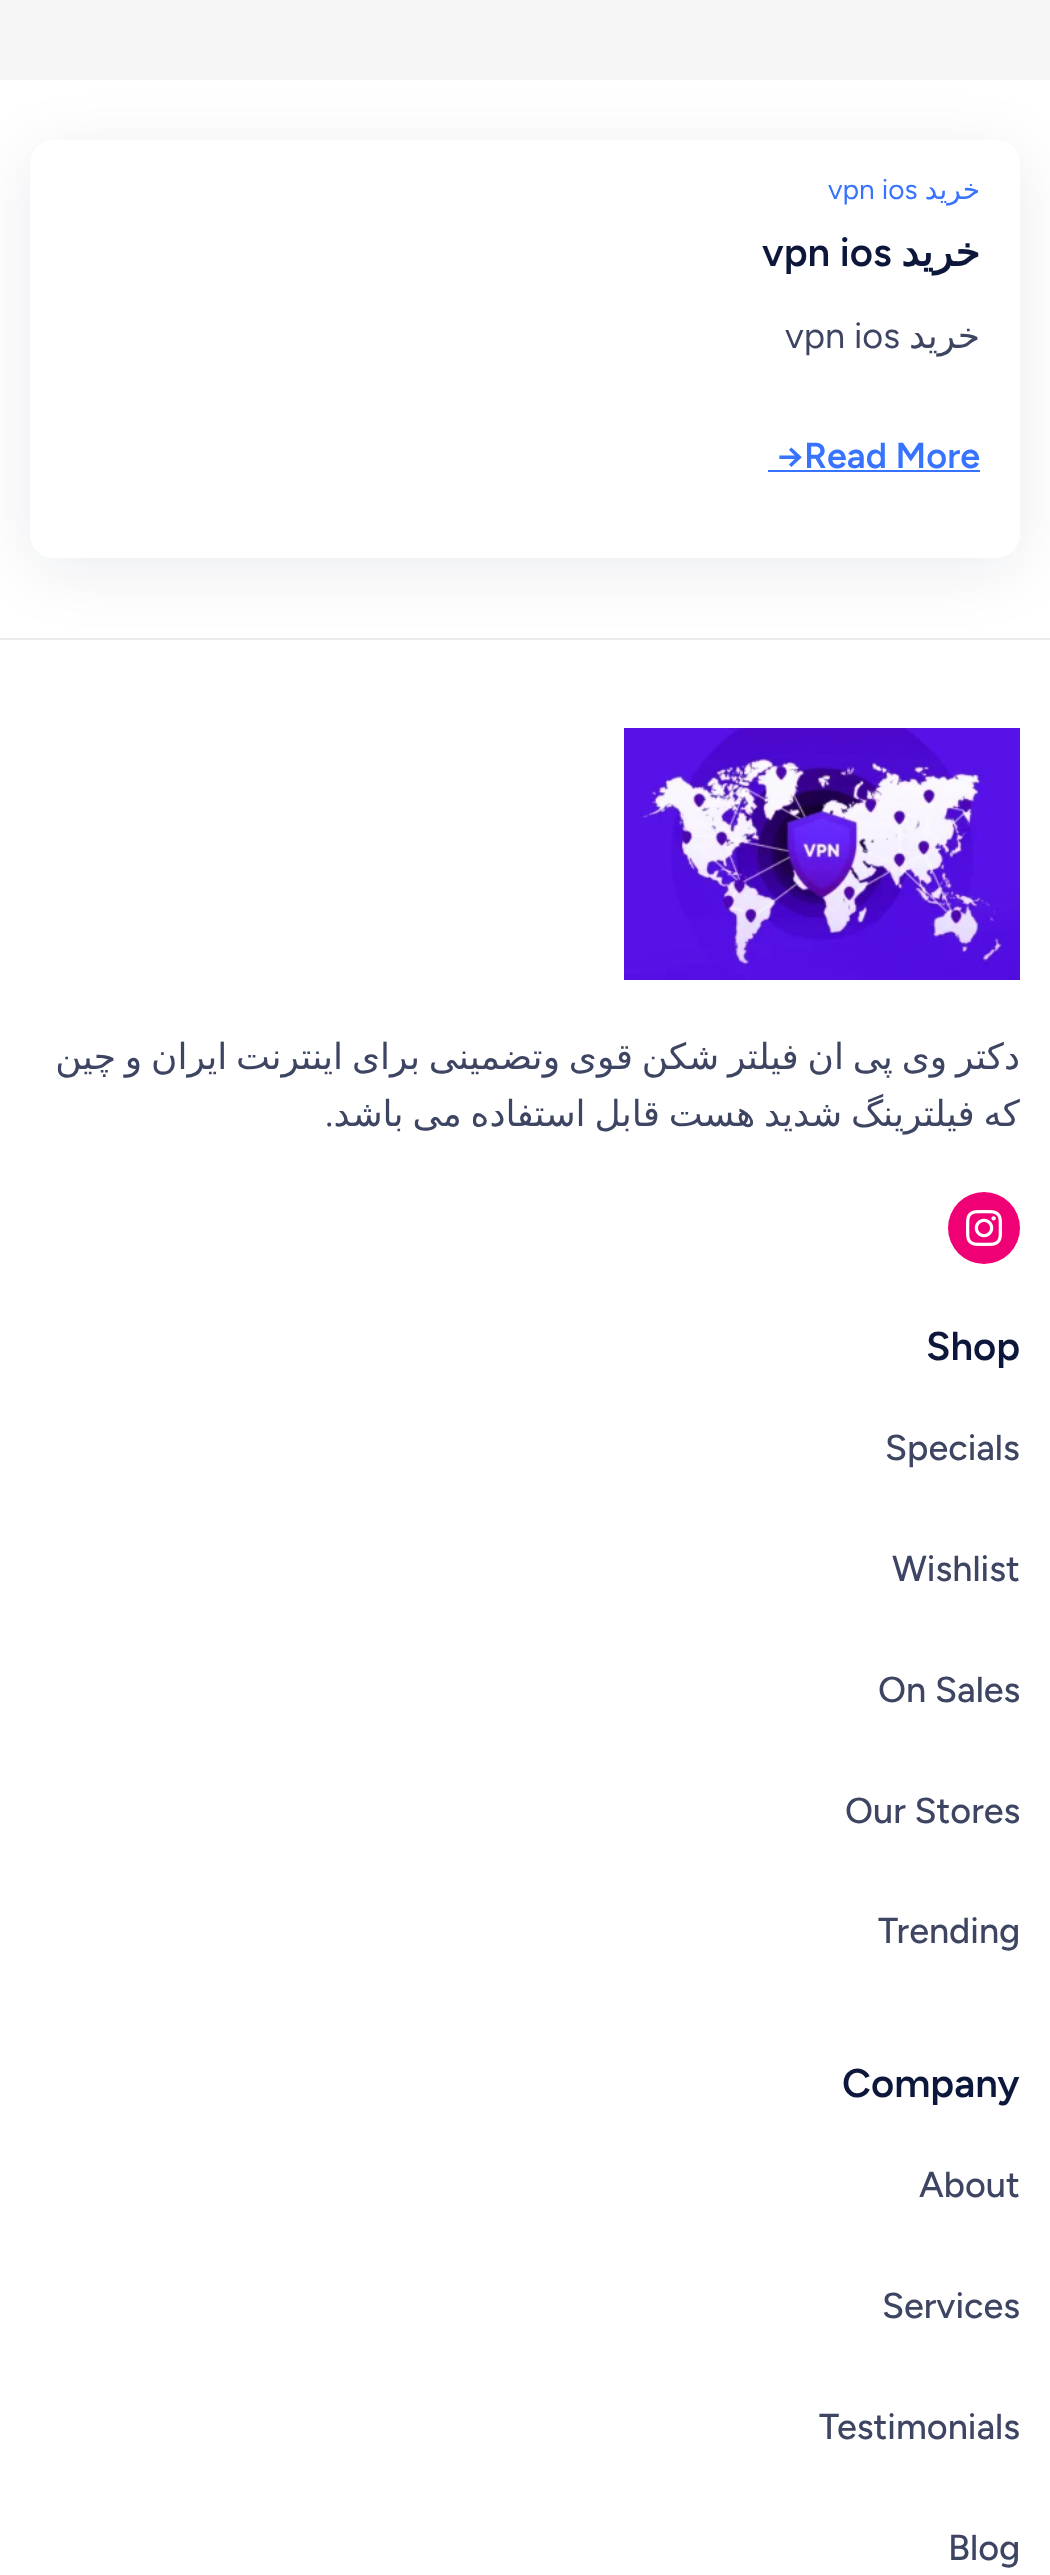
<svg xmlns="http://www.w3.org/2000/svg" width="1050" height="2575">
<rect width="100%" height="100%" fill="#fff"/>
<rect width="1050" height="80" fill="#f6f6f7"/>
<rect y="638" width="1050" height="2" fill="#ebebeb"/>
<rect x="30" y="152" width="990" height="418" rx="24" fill="#000e3014" filter="blur(32px)"/>
<rect x="30" y="140" width="990" height="418" rx="24" fill="#fff"/>
<text x="980" y="199" style="font-family:DejaVu Sans;font-size:28px;direction:rtl;fill:#3773fe">خرید</text>
<text x="828" y="199" style="font-family:Figtree;font-size:28px;fill:#3773fe">vpn ios</text>
<text x="980" y="266" style="font-family:DejaVu Sans;font-size:40px;font-weight:bold;direction:rtl;fill:#0d173b">خرید</text>
<text x="762" y="266" style="font-family:Figtree;font-size:40px;font-weight:600;fill:#0d173b">vpn ios</text>
<text x="980" y="348" style="font-family:DejaVu Sans;font-size:36px;direction:rtl;fill:#3d4562">خرید</text>
<text x="785" y="348" style="font-family:Figtree;font-size:36px;fill:#3d4562">vpn ios</text>
<text x="804" y="468" style="font-family:Figtree;font-size:36px;font-weight:600;fill:#3773fe">Read More</text>
<rect x="768" y="470" width="212" height="2" fill="#3773fe"/>
<text x="777" y="468" style="font-family:Figtree;font-size:36px;font-weight:600;fill:#3773fe">→</text>
<image x="624" y="728" width="396" height="252" href="media/1.png"/>
<text x="1020" y="1069" word-spacing="-2.6" style="font-family:DejaVu Sans;font-size:36px;direction:rtl;fill:#3d4562">دکتر وی پی ان فیلتر شکن قوی وتضمینی برای اینترنت ایران و چین</text>
<text x="1020" y="1126" word-spacing="-2.6" style="font-family:DejaVu Sans;font-size:36px;direction:rtl;fill:#3d4562">که فیلترینگ شدید هست قابل استفاده می باشد</text>
<text x="333" y="1126" style="font-family:Figtree;font-size:36px;direction:rtl;fill:#3d4562">.</text>
<circle cx="984" cy="1228" r="36" fill="#f00075"/>
<image x="966" y="1210" width="36" height="36" href="media/2.png"/>
<text x="926" y="1360" style="font-family:Figtree;font-size:40px;font-weight:600;fill:#0d173b">Shop</text>
<text x="885" y="1460" style="font-family:Figtree;font-size:36px;font-weight:500;fill:#3d4562">Specials</text>
<text x="892" y="1581" style="font-family:Figtree;font-size:36px;font-weight:500;fill:#3d4562">Wishlist</text>
<text x="878" y="1702" style="font-family:Figtree;font-size:36px;font-weight:500;fill:#3d4562">On Sales</text>
<text x="845" y="1823" style="font-family:Figtree;font-size:36px;font-weight:500;fill:#3d4562">Our Stores</text>
<text x="878" y="1943" style="font-family:Figtree;font-size:36px;font-weight:500;fill:#3d4562">Trending</text>
<text x="842" y="2097" style="font-family:Figtree;font-size:40px;font-weight:600;fill:#0d173b">Company</text>
<text x="919" y="2197" style="font-family:Figtree;font-size:36px;font-weight:500;fill:#3d4562">About</text>
<text x="882" y="2318" style="font-family:Figtree;font-size:36px;font-weight:500;fill:#3d4562">Services</text>
<text x="819" y="2439" style="font-family:Figtree;font-size:36px;font-weight:500;fill:#3d4562">Testimonials</text>
<text x="948" y="2560" style="font-family:Figtree;font-size:36px;font-weight:500;fill:#3d4562">Blog</text>
</svg>
